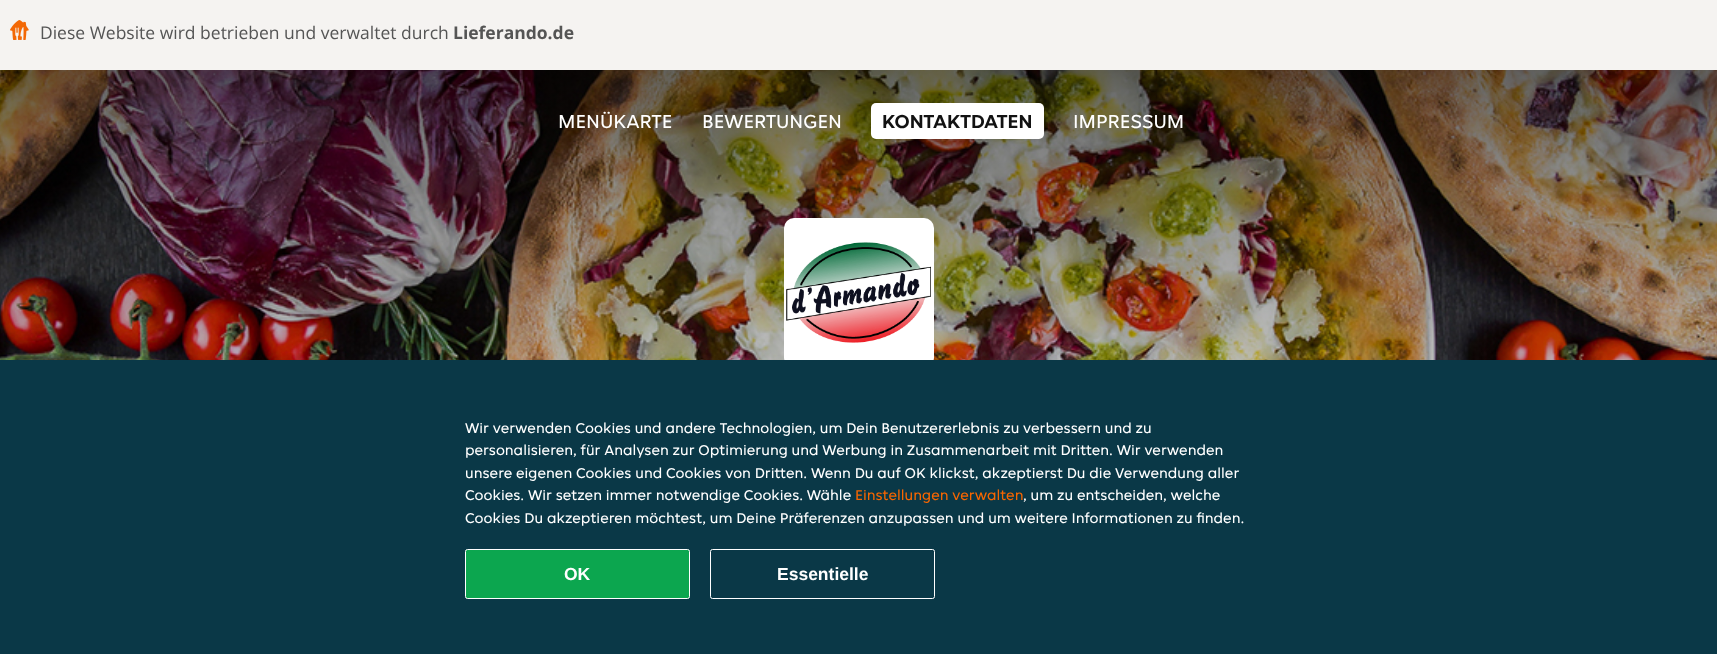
<svg xmlns="http://www.w3.org/2000/svg" width="1717" height="654">
<defs>
<linearGradient id="g1" gradientUnits="userSpaceOnUse" x1="859" y1="0" x2="859" y2="625"><stop offset="0" stop-color="#000" stop-opacity="0.7"/><stop offset="0.33" stop-color="#000" stop-opacity="0.4"/><stop offset="0.67" stop-color="#000" stop-opacity="0.2"/><stop offset="1" stop-color="#000" stop-opacity="0"/></linearGradient>
</defs>
<rect width="100%" height="100%" fill="#fff"/>
<rect width="1717" height="70" fill="#f5f3f1"/>
<image x="10" y="20" width="19" height="20" href="media/1.png"/>
<text x="40" y="39" style="font-family:Open Sans;font-size:17.5px;fill:#555">Diese Website wird betrieben und verwaltet durch</text>
<text x="453" y="39" style="font-family:Open Sans;font-size:17.5px;font-weight:bold;fill:#555">Lieferando.de</text>
<image x="0" y="70" width="1717" height="290" href="media/2.png"/>
<rect y="70" width="1717" height="290" fill="url(#g1)"/>
<text x="558" y="128" style="font-family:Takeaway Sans;font-size:20px;fill:#fff">MENÜKARTE</text>
<text x="702" y="128" style="font-family:Takeaway Sans;font-size:20px;fill:#fff">BEWERTUNGEN</text>
<rect x="871" y="103" width="173" height="36" rx="5" fill="#fff"/>
<text x="882" y="128" style="font-family:Takeaway Sans;font-size:20px;font-weight:bold;fill:#121212">KONTAKTDATEN</text>
<text x="1073" y="128" style="font-family:Takeaway Sans;font-size:20px;fill:#fff">IMPRESSUM</text>
<rect x="784" y="218" width="150" height="150" rx="10" fill="#fff"/>
<image x="786" y="242" width="145" height="101" href="media/3.png"/>
<rect y="360" width="1717" height="294" fill="#0a3847"/>
<text x="465" y="433" style="font-family:Takeaway Sans;font-size:15px;fill:#fff">Wir verwenden Cookies und andere Technologien, um Dein Benutzererlebnis zu verbessern und zu</text>
<text x="465" y="455" style="font-family:Takeaway Sans;font-size:15px;fill:#fff">personalisieren, für Analysen zur Optimierung und Werbung in Zusammenarbeit mit Dritten. Wir verwenden</text>
<text x="465" y="478" style="font-family:Takeaway Sans;font-size:15px;fill:#fff">unsere eigenen Cookies und Cookies von Dritten. Wenn Du auf OK klickst, akzeptierst Du die Verwendung aller</text>
<text x="465" y="500" style="font-family:Takeaway Sans;font-size:15px;fill:#fff">Cookies. Wir setzen immer notwendige Cookies. Wähle</text>
<text x="855" y="500" style="font-family:Takeaway Sans;font-size:15px;fill:#f86600">Einstellungen verwalten</text>
<text x="1023" y="500" style="font-family:Takeaway Sans;font-size:15px;fill:#fff">, um zu entscheiden, welche</text>
<text x="465" y="523" style="font-family:Takeaway Sans;font-size:15px;fill:#fff">Cookies Du akzeptieren möchtest, um Deine Präferenzen anzupassen und um weitere Informationen zu finden.</text>
<rect x="465.5" y="549.5" width="224" height="49" rx="2" fill="#0ca64f" stroke="#fff"/>
<text x="564" y="580" style="font-family:Liberation Sans;font-size:17.5px;font-weight:bold;fill:#fff">OK</text>
<rect x="710.5" y="549.5" width="224" height="49" rx="2" fill="none" stroke="#fff"/>
<text x="777" y="580" style="font-family:Liberation Sans;font-size:17.5px;font-weight:bold;fill:#fff">Essentielle</text>
</svg>
